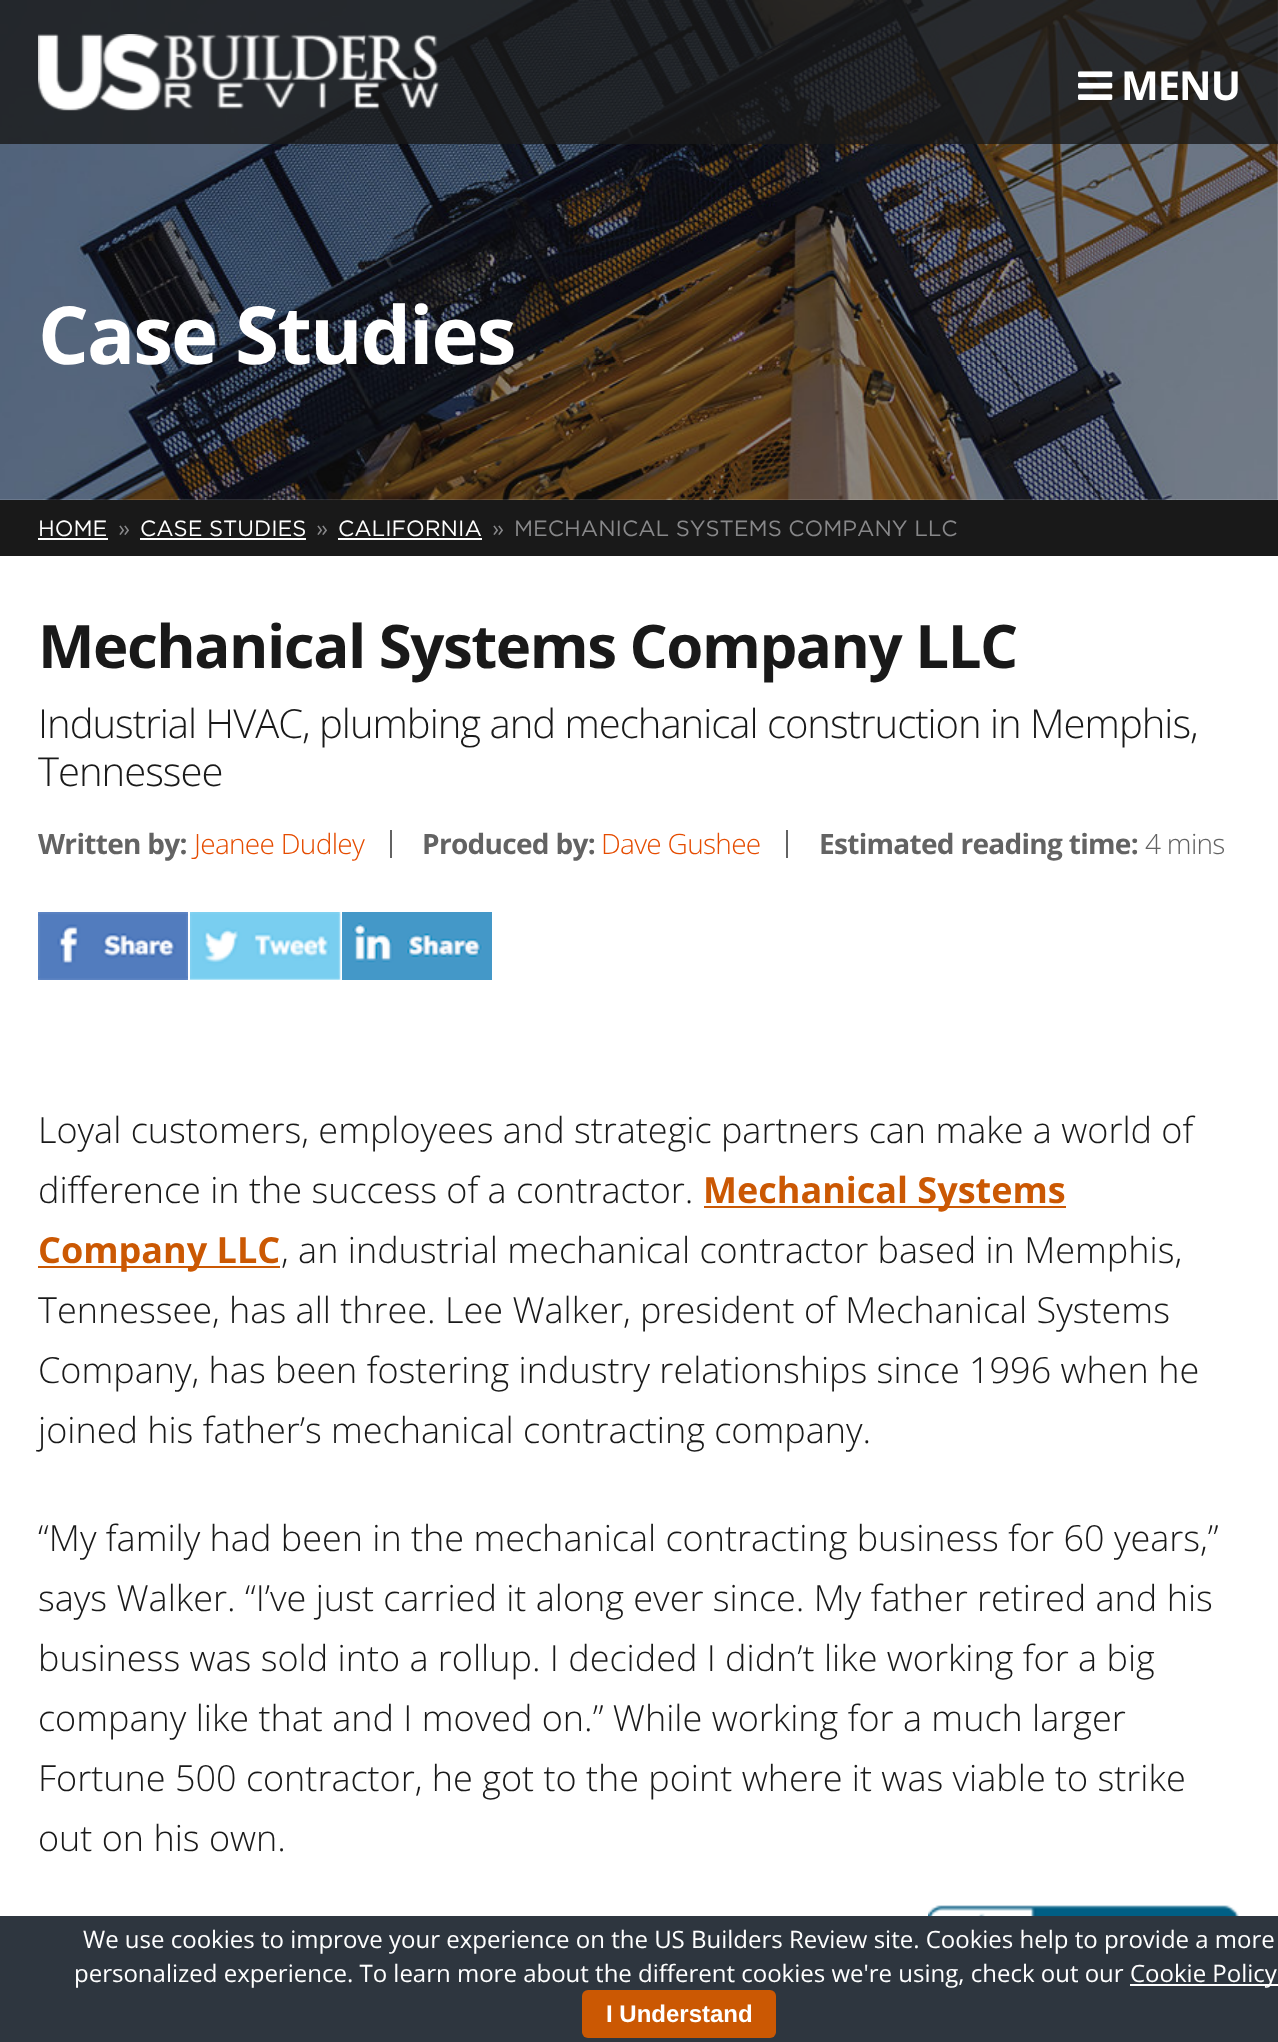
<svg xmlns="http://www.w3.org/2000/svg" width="1278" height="2042">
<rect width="100%" height="100%" fill="#fff"/>
<image x="0" y="0" width="1278" height="500" href="media/3.png"/>
<rect width="1278" height="144" fill="#191919cc"/>
<image x="38" y="34" width="402" height="77" href="media/1.png"/>
<image x="1078" y="71" width="35" height="29" href="media/2.png"/>
<text x="1121" y="100" style="font-family:Open Sans;font-size:40px;font-weight:bold;letter-spacing:-1px;fill:#fff">MENU</text>
<text x="38" y="364" style="font-family:Open Sans;font-size:80px;font-weight:bold;letter-spacing:-2px;fill:#fff">Case Studies</text>
<rect y="500" width="1278" height="56" fill="#191919"/>
<text x="38" y="536" style="font-family:Gotham;font-size:22px;fill:#fff">HOME</text>
<rect x="38" y="538" width="70" height="2" fill="#fff"/>
<text x="118" y="536" style="font-family:Gotham;font-size:22px;fill:#88888a">»</text>
<text x="140" y="536" style="font-family:Gotham;font-size:22px;fill:#fff">CASE STUDIES</text>
<rect x="140" y="538" width="166" height="2" fill="#fff"/>
<text x="316" y="536" style="font-family:Gotham;font-size:22px;fill:#88888a">»</text>
<text x="338" y="536" style="font-family:Gotham;font-size:22px;fill:#fff">CALIFORNIA</text>
<rect x="338" y="538" width="144" height="2" fill="#fff"/>
<text x="492" y="536" style="font-family:Gotham;font-size:22px;fill:#88888a">»</text>
<text x="514" y="536" style="font-family:Gotham;font-size:22px;fill:#88888a">MECHANICAL SYSTEMS COMPANY LLC</text>
<text x="38" y="668" style="font-family:Open Sans;font-size:60px;font-weight:bold;letter-spacing:-1.5px;fill:#191919">Mechanical Systems Company LLC</text>
<text x="38" y="738" style="font-family:Open Sans;font-size:40px;font-weight:300;letter-spacing:-1px;fill:#191919">Industrial HVAC, plumbing and mechanical construction in Memphis,</text>
<text x="38" y="786" style="font-family:Open Sans;font-size:40px;font-weight:300;letter-spacing:-1px;fill:#191919">Tennessee</text>
<text x="38" y="854" style="font-family:Open Sans;font-size:28px;font-weight:bold;letter-spacing:-0.7px;fill:#636363">Written by:</text>
<text x="194" y="854" style="font-family:Open Sans;font-size:28px;font-weight:300;letter-spacing:-0.7px;fill:#e54c00">Jeanee Dudley</text>
<rect x="390" y="830" width="2" height="28" fill="#636363"/>
<text x="422" y="854" style="font-family:Open Sans;font-size:28px;font-weight:bold;letter-spacing:-0.7px;fill:#636363">Produced by:</text>
<text x="601" y="854" style="font-family:Open Sans;font-size:28px;font-weight:300;letter-spacing:-0.7px;fill:#e54c00">Dave Gushee</text>
<rect x="786" y="830" width="2" height="28" fill="#636363"/>
<text x="819" y="854" style="font-family:Open Sans;font-size:28px;font-weight:bold;letter-spacing:-0.7px;fill:#636363">Estimated reading time:</text>
<text x="1145" y="854" style="font-family:Open Sans;font-size:28px;font-weight:300;letter-spacing:-0.7px;fill:#636363">4 mins</text>
<image x="38" y="912" width="150" height="68" href="media/4.png"/>
<image x="190" y="912" width="151" height="68" href="media/5.png"/>
<image x="342" y="912" width="150" height="68" href="media/6.png"/>
<text x="38" y="1143" style="font-family:Open Sans;font-size:36px;font-weight:300;fill:#191919">Loyal customers, employees and strategic partners can make a world of</text>
<text x="38" y="1203" style="font-family:Open Sans;font-size:36px;font-weight:300;fill:#191919">difference in the success of a contractor.</text>
<rect x="704" y="1206" width="362" height="2" fill="#cb5803"/>
<text x="703" y="1203" style="font-family:Open Sans;font-size:36px;font-weight:bold;fill:#cb5803">Mechanical Systems</text>
<rect x="38" y="1266" width="242" height="2" fill="#cb5803"/>
<text x="38" y="1263" style="font-family:Open Sans;font-size:36px;font-weight:bold;fill:#cb5803">Company LLC</text>
<text x="281" y="1263" style="font-family:Open Sans;font-size:36px;font-weight:300;fill:#191919">, an industrial mechanical contractor based in Memphis,</text>
<text x="38" y="1323" style="font-family:Open Sans;font-size:36px;font-weight:300;fill:#191919">Tennessee, has all three. Lee Walker, president of Mechanical Systems</text>
<text x="38" y="1383" style="font-family:Open Sans;font-size:36px;font-weight:300;fill:#191919">Company, has been fostering industry relationships since 1996 when he</text>
<text x="38" y="1443" style="font-family:Open Sans;font-size:36px;font-weight:300;fill:#191919">joined his father’s mechanical contracting company.</text>
<text x="38" y="1551" style="font-family:Open Sans;font-size:36px;font-weight:300;fill:#191919">“My family had been in the mechanical contracting business for 60 years,”</text>
<text x="38" y="1611" style="font-family:Open Sans;font-size:36px;font-weight:300;fill:#191919">says Walker. “I’ve just carried it along ever since. My father retired and his</text>
<text x="38" y="1671" style="font-family:Open Sans;font-size:36px;font-weight:300;fill:#191919">business was sold into a rollup. I decided I didn’t like working for a big</text>
<text x="38" y="1731" style="font-family:Open Sans;font-size:36px;font-weight:300;fill:#191919">company like that and I moved on.” While working for a much larger</text>
<text x="38" y="1791" style="font-family:Open Sans;font-size:36px;font-weight:300;fill:#191919">Fortune 500 contractor, he got to the point where it was viable to strike</text>
<text x="38" y="1851" style="font-family:Open Sans;font-size:36px;font-weight:300;fill:#191919">out on his own.</text>
<rect y="1916" width="1278" height="126" fill="#2e363f"/>
<text x="83" y="1948" style="font-family:Open Sans;font-size:24px;fill:#fff">We use cookies to improve your experience on the US Builders Review site. Cookies help to provide a more</text>
<text x="74" y="1982" style="font-family:Open Sans;font-size:24px;fill:#fff">personalized experience. To learn more about the different cookies we're using, check out our</text>
<rect x="1130" y="1984" width="148" height="2" fill="#fff"/>
<text x="1130" y="1982" style="font-family:Open Sans;font-size:24px;fill:#fff">Cookie Policy</text>
<rect x="582" y="1990" width="194" height="48" rx="6" fill="#cb5803"/>
<text x="606" y="2022" style="font-family:Liberation Sans;font-size:24px;font-weight:bold;fill:#fff">I Understand</text>
<image x="928" y="1905" width="311" height="11" href="media/7.png"/>
</svg>
